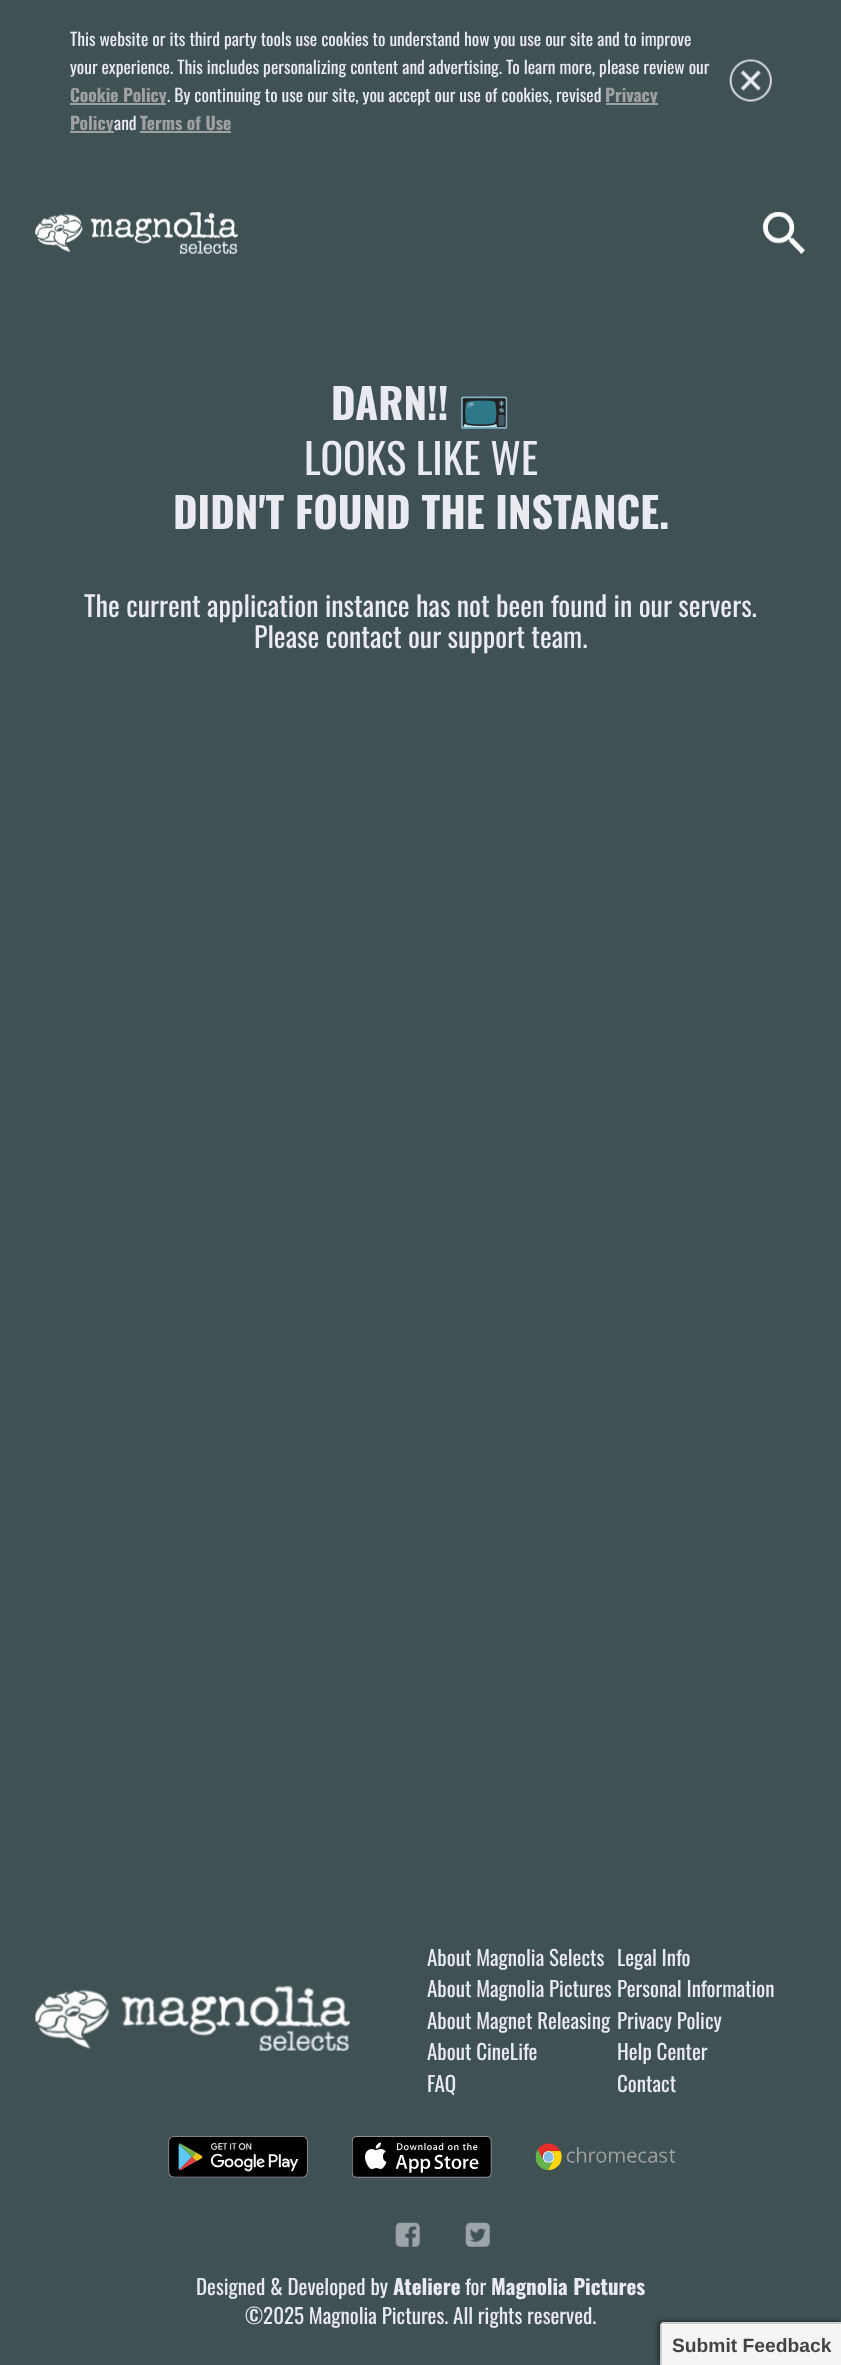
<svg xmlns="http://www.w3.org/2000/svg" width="841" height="2365">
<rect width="100%" height="100%" fill="#405153"/>
<text x="70" y="46" style="font-family:Oswald;font-size:17.5px;fill:#eaebf0">This website or its third party tools use cookies to understand how you use our site and to improve</text>
<text x="70" y="74" style="font-family:Oswald;font-size:17.5px;fill:#eaebf0">your experience. This includes personalizing content and advertising. To learn more, please review our</text>
<rect x="70" y="103" width="96" height="2" fill="#9ea0a1"/>
<text x="70" y="102" style="font-family:Oswald;font-size:17.5px;font-weight:bold;fill:#9ea0a1">Cookie Policy</text>
<text x="167" y="102" style="font-family:Oswald;font-size:17.5px;fill:#eaebf0">. By continuing to use our site, you accept our use of cookies, revised</text>
<rect x="606" y="103" width="52" height="2" fill="#9ea0a1"/>
<text x="605" y="102" style="font-family:Oswald;font-size:17.5px;font-weight:bold;fill:#9ea0a1">Privacy</text>
<rect x="70" y="131" width="44" height="2" fill="#9ea0a1"/>
<text x="70" y="130" style="font-family:Oswald;font-size:17.5px;font-weight:bold;fill:#9ea0a1">Policy</text>
<text x="114" y="130" style="font-family:Oswald;font-size:17.5px;fill:#eaebf0">and</text>
<text x="140" y="130" style="font-family:Oswald;font-size:17.5px;font-weight:bold;fill:#9ea0a1">Terms of Use</text>
<rect x="140" y="131" width="91" height="2" fill="#9ea0a1"/>
<image x="729" y="59" width="43" height="43" href="media/1.png"/>
<image x="35" y="212" width="203" height="42" href="media/2.png"/>
<image x="763" y="212" width="42" height="42" href="media/3.png"/>
<text x="331" y="420" style="font-family:Oswald;font-size:42px;font-weight:bold;fill:#eaebf0">DARN!!</text>
<text x="458" y="420" style="font-family:Noto Color Emoji;font-size:42px;fill:#eaebf0">📺</text>
<text x="304" y="475" style="font-family:Oswald;font-size:42px;fill:#eaebf0">LOOKS LIKE WE</text>
<text x="173" y="529" style="font-family:Oswald;font-size:42px;font-weight:bold;fill:#eaebf0">DIDN'T FOUND THE INSTANCE.</text>
<text x="84" y="617" style="font-family:Oswald;font-size:28px;fill:#eaebf0">The current application instance has not been found in our servers.</text>
<text x="254" y="648" style="font-family:Oswald;font-size:28px;fill:#eaebf0">Please contact our support team.</text>
<image x="35" y="1985" width="315" height="66" href="media/4.png"/>
<text x="427" y="1966" style="font-family:Oswald;font-size:21px;fill:#eaebf0">About Magnolia Selects</text>
<text x="427" y="1997" style="font-family:Oswald;font-size:21px;fill:#eaebf0">About Magnolia Pictures</text>
<text x="427" y="2029" style="font-family:Oswald;font-size:21px;fill:#eaebf0">About Magnet Releasing</text>
<text x="427" y="2060" style="font-family:Oswald;font-size:21px;fill:#eaebf0">About CineLife</text>
<text x="617" y="1966" style="font-family:Oswald;font-size:21px;fill:#eaebf0">Legal Info</text>
<text x="617" y="1997" style="font-family:Oswald;font-size:21px;fill:#eaebf0">Personal Information</text>
<text x="617" y="2029" style="font-family:Oswald;font-size:21px;fill:#eaebf0">Privacy Policy</text>
<text x="617" y="2060" style="font-family:Oswald;font-size:21px;fill:#eaebf0">Help Center</text>
<text x="427" y="2092" style="font-family:Oswald;font-size:21px;fill:#eaebf0">FAQ</text>
<text x="617" y="2092" style="font-family:Oswald;font-size:21px;fill:#eaebf0">Contact</text>
<image x="168" y="2136" width="140" height="42" href="media/5.png"/>
<image x="352" y="2136" width="140" height="42" href="media/6.png"/>
<image x="535" y="2143" width="141" height="27" href="media/7.png"/>
<image x="395" y="2222" width="25" height="25" href="media/8.png"/>
<image x="465" y="2222" width="25" height="25" href="media/9.png"/>
<text x="196" y="2295" style="font-family:Oswald;font-size:21px;fill:#eaebf0">Designed &amp; Developed by</text>
<text x="393" y="2295" style="font-family:Oswald;font-size:21px;font-weight:bold;fill:#eaebf0">Ateliere</text>
<text x="465" y="2295" style="font-family:Oswald;font-size:21px;fill:#eaebf0">for</text>
<text x="491" y="2295" style="font-family:Oswald;font-size:21px;font-weight:bold;fill:#eaebf0">Magnolia Pictures</text>
<text x="245" y="2324" style="font-family:Oswald;font-size:21px;fill:#eaebf0">©2025 Magnolia Pictures. All rights reserved.</text>
<rect x="658" y="2321" width="182" height="43" rx="4" fill="#00000080" filter="blur(2px)"/>
<path d="M664 2322h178v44h-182v-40c0-2 2-4 4-4z" fill="#f5f5f5"/>
<rect x="662" y="2322" width="179" height="2" fill="#ccc"/>
<rect x="660" y="2324" width="2" height="41" fill="#ccc"/>
<text x="672" y="2352" style="font-family:Liberation Sans;font-size:19.25px;font-weight:bold;fill:#444">Submit Feedback</text>
</svg>
